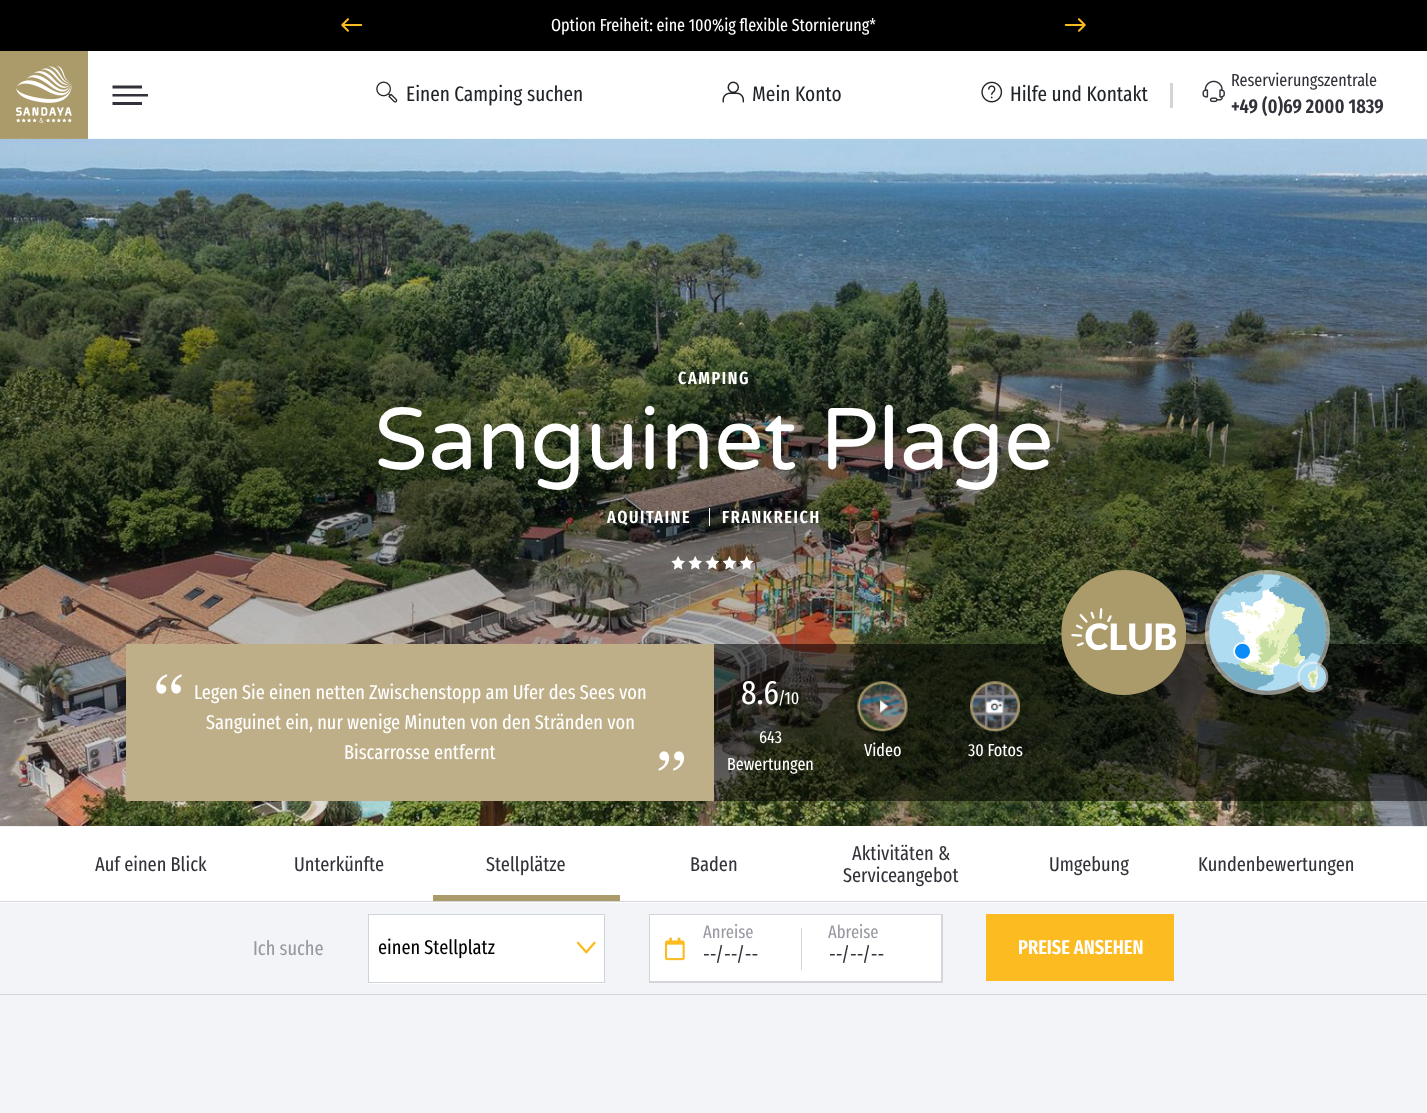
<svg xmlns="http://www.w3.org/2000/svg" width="1427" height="1113">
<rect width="100%" height="100%" fill="#fff"/>
<rect width="1427" height="51" fill="#000"/>
<image x="341" y="18" width="22" height="14" href="media/1.png"/>
<text x="551" y="31" style="font-family:Fira Sans Extra Condensed;font-size:17.5px;fill:#fff">Option Freiheit: eine 100%ig flexible Stornierung*</text>
<image x="1064" y="18" width="22" height="14" href="media/2.png"/>
<image x="0" y="51" width="88" height="88" href="media/3.png"/>
<path d="M112.5 88.5v-3h29.5v3zm0 16.5v-3h29.5v3zm0-8.5v-2.5h35.5v2.5z" fill="#32323a"/>
<image x="376" y="81" width="22" height="22" href="media/4.png"/>
<text x="406" y="101" style="font-family:Fira Sans Extra Condensed;font-size:21px;fill:#212529">Einen Camping suchen</text>
<image x="722" y="81" width="23" height="22" href="media/5.png"/>
<text x="752" y="101" style="font-family:Fira Sans Extra Condensed;font-size:21px;fill:#212529">Mein Konto</text>
<image x="981" y="81" width="22" height="22" href="media/6.png"/>
<text x="1010" y="101" style="font-family:Fira Sans Extra Condensed;font-size:21px;fill:#212529">Hilfe und Kontakt</text>
<rect x="1170" y="83" width="3" height="25" fill="#d4d5db"/>
<image x="1202" y="80" width="23" height="23" href="media/7.png"/>
<text x="1231" y="86" style="font-family:Fira Sans Extra Condensed;font-size:17.5px;fill:#32323a">Reservierungszentrale</text>
<text x="1231" y="113" style="font-family:Fira Sans Extra Condensed;font-size:20px;font-weight:600;fill:#32323a">+49 (0)69 2000 1839</text>
<image x="0" y="138" width="1427" height="689" href="media/8.png"/>
<image x="0" y="138" width="1427" height="689" href="media/9.png"/>
<text x="678" y="384" style="font-family:Fira Sans Extra Condensed;font-size:17.5px;font-weight:600;letter-spacing:1.6px;fill:#fff">CAMPING</text>
<text x="374" y="469" style="font-family:Varela Round;font-size:87.5px;fill:#fff">Sanguinet Plage</text>
<text x="607" y="523" style="font-family:Fira Sans Extra Condensed;font-size:17.5px;font-weight:600;letter-spacing:1.6px;fill:#fff">AQUITAINE</text>
<rect x="709" y="508" width="1" height="18" fill="#fff"/>
<text x="722" y="523" style="font-family:Fira Sans Extra Condensed;font-size:17.5px;font-weight:600;letter-spacing:1.6px;fill:#fff">FRANKREICH</text>
<image x="671" y="556" width="83" height="14" href="media/10.png"/>
<rect x="126" y="644" width="588" height="157" fill="#beaf89"/>
<image x="156" y="674" width="26" height="20" href="media/11.png"/>
<text x="194" y="699" style="font-family:Fira Sans Extra Condensed;font-size:20px;fill:#fff">Legen Sie einen netten Zwischenstopp am Ufer des Sees von</text>
<text x="206" y="729" style="font-family:Fira Sans Extra Condensed;font-size:20px;fill:#fff">Sanguinet ein, nur wenige Minuten von den Stränden von</text>
<text x="344" y="759" style="font-family:Fira Sans Extra Condensed;font-size:20px;fill:#fff">Biscarrosse entfernt</text>
<image x="658" y="751" width="27" height="20" href="media/12.png"/>
<rect x="714" y="644" width="713" height="157" fill="#0000008c"/>
<image x="1061" y="570" width="125" height="125" href="media/13.png"/>
<image x="1205" y="570" width="125" height="125" href="media/14.png"/>
<text x="741" y="704" style="font-family:Fira Sans Extra Condensed;font-size:34px;fill:#fff">8.6</text>
<text x="778" y="704" style="font-family:Fira Sans Extra Condensed;font-size:17.5px;fill:#fff">/10</text>
<text x="759" y="743" style="font-family:Fira Sans Extra Condensed;font-size:17.5px;fill:#fff">643</text>
<text x="727" y="770" style="font-family:Fira Sans Extra Condensed;font-size:17.5px;fill:#fff">Bewertungen</text>
<image x="857" y="681" width="51" height="51" href="media/15.png"/>
<text x="864" y="756" style="font-family:Fira Sans Extra Condensed;font-size:17.5px;fill:#fff">Video</text>
<image x="970" y="681" width="50" height="51" href="media/16.png"/>
<text x="968" y="756" style="font-family:Fira Sans Extra Condensed;font-size:17.5px;fill:#fff">30 Fotos</text>
<rect y="901" width="1427" height="1" fill="#d4d5db"/>
<rect x="58" y="826" width="1312" height="1" fill="#fff"/>
<text x="95" y="871" style="font-family:Fira Sans Extra Condensed;font-size:20px;fill:#32323a">Auf einen Blick</text>
<text x="294" y="871" style="font-family:Fira Sans Extra Condensed;font-size:20px;fill:#32323a">Unterkünfte</text>
<text x="486" y="871" style="font-family:Fira Sans Extra Condensed;font-size:20px;fill:#32323a">Stellplätze</text>
<rect x="433" y="895" width="187" height="6" fill="#ac9b6a"/>
<text x="690" y="871" style="font-family:Fira Sans Extra Condensed;font-size:20px;fill:#32323a">Baden</text>
<text x="852" y="860" style="font-family:Fira Sans Extra Condensed;font-size:20px;fill:#32323a">Aktivitäten &amp;</text>
<text x="843" y="882" style="font-family:Fira Sans Extra Condensed;font-size:20px;fill:#32323a">Serviceangebot</text>
<text x="1049" y="871" style="font-family:Fira Sans Extra Condensed;font-size:20px;fill:#32323a">Umgebung</text>
<text x="1198" y="871" style="font-family:Fira Sans Extra Condensed;font-size:20px;fill:#32323a">Kundenbewertungen</text>
<rect y="903" width="1427" height="91" fill="#f2f4f7"/>
<rect y="994" width="1427" height="1" fill="#d4d5db"/>
<text x="253" y="955" style="font-family:Fira Sans Extra Condensed;font-size:20px;fill:#9898a2">Ich suche</text>
<rect x="368" y="915" width="237" height="69" fill="#fff"/>
<image x="576" y="941" width="20" height="13" href="media/17.png"/>
<rect x="368.5" y="914.5" width="236" height="68" fill="none" stroke="#ced4da"/>
<text x="378" y="954" style="font-family:Fira Sans Extra Condensed;font-size:20px;fill:#000">einen Stellplatz</text>
<rect x="650" y="915" width="291" height="67" fill="#fff"/>
<rect x="649.5" y="914.5" width="293" height="68" fill="none" stroke="#d4d5db"/>
<image x="665" y="937" width="20" height="24" href="media/18.png"/>
<text x="703" y="938" style="font-family:Fira Sans Extra Condensed;font-size:18px;fill:#9898a2">Anreise</text>
<path d="M802 982h-153l1-1h151z" fill="#d4d5db"/>
<text x="703" y="961" style="font-family:Fira Sans Extra Condensed;font-size:20px;fill:#32323a">--/--/--</text>
<rect x="801" y="928" width="1" height="42" fill="#d4d5db"/>
<text x="828" y="938" style="font-family:Fira Sans Extra Condensed;font-size:18px;fill:#9898a2">Abreise</text>
<rect x="941" y="914" width="1" height="69" fill="#d4d5db"/>
<path d="M942 982h-141l1-1h139z" fill="#d4d5db"/>
<text x="829" y="961" style="font-family:Fira Sans Extra Condensed;font-size:20px;fill:#32323a">--/--/--</text>
<rect x="986" y="914" width="188" height="67" fill="#fbbb21"/>
<text x="1018" y="954" style="font-family:Fira Sans Extra Condensed;font-size:20px;font-weight:600;fill:#fff">PREISE ANSEHEN</text>
<rect y="995" width="1427" height="118" fill="#f2f4f7"/>
</svg>
